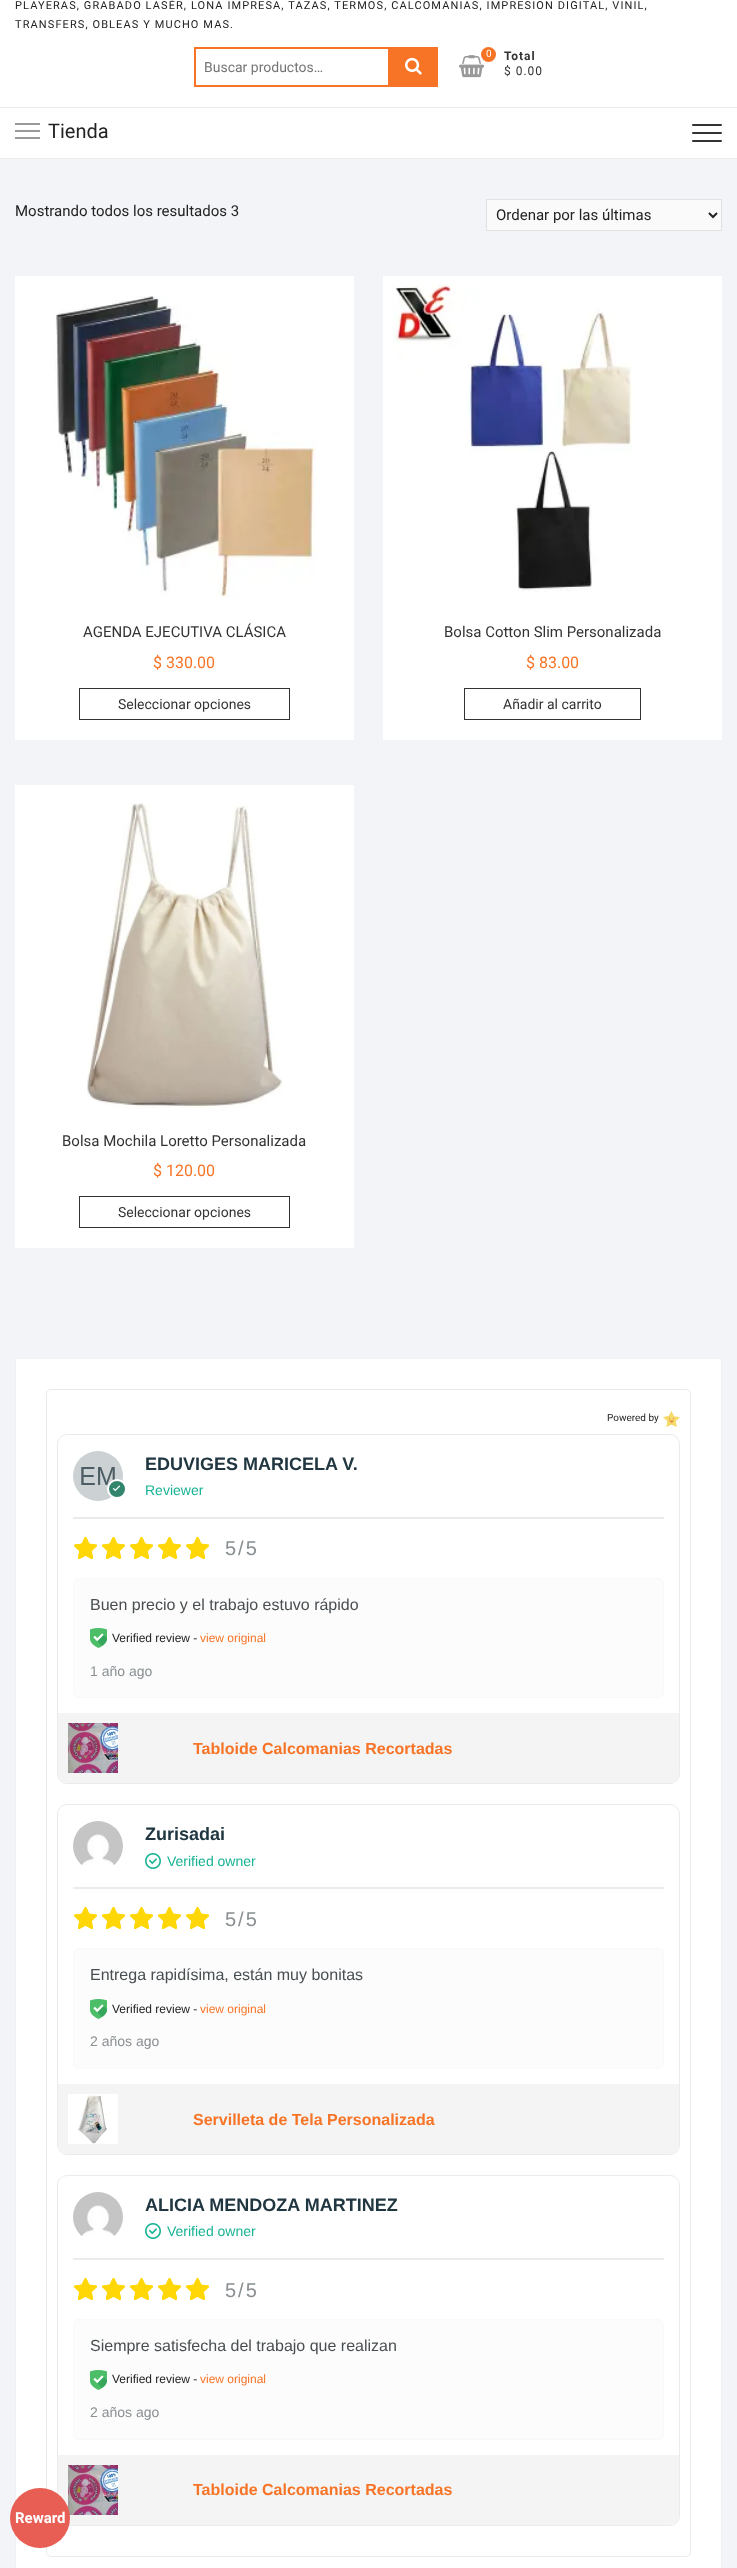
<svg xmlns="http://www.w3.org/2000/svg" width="737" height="2568">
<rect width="100%" height="100%" fill="#f3f4f8"/>
<rect width="737" height="158" fill="#fff"/>
<text x="15" y="9" style="font-family:Roboto;font-size:11px;letter-spacing:1.1px;fill:#222">PLAYERAS, GRABADO LASÉR, LONA IMPRESA, TAZAS, TERMOS, CALCOMANIAS, IMPRESION DIGITAL, VINIL,</text>
<text x="15" y="28" style="font-family:Roboto;font-size:11px;letter-spacing:1.1px;fill:#222">TRANSFERS, OBLEAS Y MUCHO MAS.</text>
<rect x="194" y="47" width="195" height="2" fill="#f77426"/>
<rect x="194" y="85" width="195" height="2" fill="#f77426"/>
<rect x="194" y="47" width="2" height="40" fill="#f77426"/>
<text x="204" y="72" style="font-family:Roboto;font-size:14px;fill:#757575">Buscar productos…</text>
<rect x="388" y="47" width="50" height="40" fill="#f77426"/>
<image x="405" y="57" width="17" height="18" href="media/1.png"/>
<image x="459" y="55" width="26" height="23" href="media/2.png"/>
<circle cx="488.5" cy="54.5" r="7.5" fill="#f77426"/>
<text x="486" y="57" style="font-family:Roboto;font-size:10px;fill:#fff">0</text>
<text x="504" y="60" style="font-family:Roboto;font-size:12px;font-weight:bold;letter-spacing:1px;fill:#333">Total</text>
<text x="504" y="75" style="font-family:Roboto;font-size:12px;letter-spacing:1px;fill:#333">$ 0.00</text>
<rect y="107" width="737" height="1" fill="#ebebeb"/>
<rect y="158" width="737" height="1" fill="#ebebeb"/>
<rect x="15" y="130" width="25" height="2" fill="#999"/>
<rect x="15" y="123" width="25" height="2" fill="#999"/>
<rect x="15" y="137" width="25" height="2" fill="#999"/>
<text x="48" y="138" style="font-family:Roboto;font-size:20px;fill:#222">Tienda</text>
<rect x="692" y="132" width="30" height="2" rx="1" fill="#333"/>
<rect x="692" y="124" width="30" height="2" rx="1" fill="#333"/>
<rect x="692" y="140" width="30" height="2" rx="1" fill="#333"/>
<text x="15" y="216" style="font-family:Roboto;font-size:15px;fill:#222">Mostrando todos los resultados 3</text>
<rect x="486.5" y="199.5" width="235" height="31" fill="#fafafa" stroke="#e1e1e1"/>
<path d="M709 213l4 4l4-4" fill="none" stroke="#222" stroke-width="2"/>
<text x="496" y="220" style="font-family:Roboto;font-size:15px;fill:#222">Ordenar por las últimas</text>
<rect x="15" y="276" width="339" height="464" fill="#fff"/>
<image x="54" y="295" width="262" height="303" href="media/3.png"/>
<text x="83" y="637" style="font-family:Roboto;font-size:15px;fill:#333">AGENDA EJECUTIVA CLÁSICA</text>
<text x="153" y="668" style="font-family:Roboto;font-size:16px;fill:#f77426">$ 330.00</text>
<rect x="79.5" y="688.5" width="210" height="31" fill="none" stroke="#333"/>
<text x="118" y="709" style="font-family:Roboto;font-size:14px;fill:#333">Seleccionar opciones</text>
<rect x="383" y="276" width="339" height="464" fill="#fff"/>
<image x="393" y="284" width="240" height="308" href="media/4.png"/>
<text x="444" y="637" style="font-family:Roboto;font-size:15px;fill:#333">Bolsa Cotton Slim Personalizada</text>
<text x="526" y="668" style="font-family:Roboto;font-size:16px;fill:#f77426">$ 83.00</text>
<rect x="464.5" y="688.5" width="176" height="31" fill="none" stroke="#333"/>
<text x="503" y="709" style="font-family:Roboto;font-size:14px;fill:#333">Añadir al carrito</text>
<rect x="15" y="785" width="339" height="463" fill="#fff"/>
<image x="87" y="803" width="196" height="306" href="media/5.png"/>
<text x="62" y="1146" style="font-family:Roboto;font-size:15px;fill:#333">Bolsa Mochila Loretto Personalizada</text>
<text x="153" y="1176" style="font-family:Roboto;font-size:16px;fill:#f77426">$ 120.00</text>
<rect x="79.5" y="1196.5" width="210" height="31" fill="none" stroke="#333"/>
<text x="118" y="1217" style="font-family:Roboto;font-size:14px;fill:#333">Seleccionar opciones</text>
<rect x="15.5" y="1358.5" width="706" height="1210" fill="#fff" stroke="#f0f0f0"/>
<rect x="46.5" y="1389.5" width="644" height="1167" rx="4.5" fill="none" stroke="#ebebeb"/>
<text x="607" y="1421" style="font-family:Roboto;font-size:10px;fill:#222">Powered by</text>
<image x="663" y="1411" width="17" height="16" href="media/6.png"/>
<rect x="57.5" y="1434.5" width="622" height="349" rx="9.5" fill="none" stroke="#ebebeb"/>
<rect x="73" y="1517" width="591" height="2" fill="#ebebeb"/>
<image x="73" y="1451" width="50" height="50" href="media/7.png"/>
<circle cx="117" cy="1489" r="9" fill="#31856c" stroke="#fff" stroke-width="2"/>
<image x="112" y="1485" width="9" height="7" href="media/8.png"/>
<text x="145" y="1470" style="font-family:Liberation Sans;font-size:18px;font-weight:bold;fill:#203741">EDUVIGES MARICELA V.</text>
<text x="145" y="1495" style="font-family:Liberation Sans;font-size:14px;fill:#18b394">Reviewer</text>
<path d="M85.5 1554.5l-6.5 3.5l1.5-7.5l-5.5-5l7.5-1l3-6.5l3 6.5l7.5 1l-5.5 5l1.5 7.5zm28 0l-6.5 3.5l1.5-7.5l-5.5-5l7.5-1l3-6.5l3 6.5l7.5 1l-5.5 5l1.5 7.5z" fill="none" stroke="#ffd707" stroke-width="2.1" stroke-linecap="round" stroke-linejoin="round"/>
<path d="M141.5 1554.5l-6.5 3.5l1.5-7.5l-5.5-5l7.5-1l3-6.5l3 6.5l7.5 1l-5.5 5l1.5 7.5zm28 0l-6.5 3.5l1.5-7.5l-5.5-5l7.5-1l3-6.5l3 6.5l7.5 1l-5.5 5l1.5 7.5z" fill="none" stroke="#ffd707" stroke-width="2.1" stroke-linecap="round" stroke-linejoin="round"/>
<path d="M197.5 1554.5l-6.5 3.5l1.5-7.5l-5.5-5l7.5-1l3-6.5l3 6.5l7.5 1l-5.5 5l1.5 7.5z" fill="none" stroke="#ffd707" stroke-width="2.1" stroke-linecap="round" stroke-linejoin="round"/>
<image x="74" y="1537" width="23" height="22" href="media/9.png"/>
<image x="102" y="1537" width="23" height="22" href="media/9.png"/>
<image x="130" y="1537" width="23" height="22" href="media/9.png"/>
<image x="158" y="1537" width="23" height="22" href="media/9.png"/>
<image x="186" y="1537" width="23" height="22" href="media/9.png"/>
<text x="225" y="1555" style="font-family:Liberation Sans;font-size:20px;letter-spacing:2px;fill:#898f92">5/5</text>
<rect x="73.5" y="1578.5" width="590" height="119" rx="5.5" fill="#fcfcfc" stroke="#f9f9f9"/>
<text x="90" y="1610" style="font-family:Liberation Sans;font-size:16px;fill:#484e51">Buen precio y el trabajo estuvo rápido</text>
<image x="90" y="1628" width="17" height="20" href="media/10.png"/>
<text x="112" y="1642" style="font-family:Liberation Sans;font-size:12px;fill:#222">Verified review -</text>
<text x="200" y="1642" style="font-family:Liberation Sans;font-size:12px;fill:#f77426">view original</text>
<text x="90" y="1676" style="font-family:Liberation Sans;font-size:14px;fill:#898f92">1 año ago</text>
<path d="M58 1713h621v61c0 5-4 9-9 9h-603c-5 0-9-4-9-9z" fill="#f4f4f4"/>
<image x="68" y="1723" width="50" height="50" href="media/11.png"/>
<text x="193" y="1754" style="font-family:Liberation Sans;font-size:16px;font-weight:bold;fill:#f77426">Tabloide Calcomanias Recortadas</text>
<rect x="57.5" y="1804.5" width="622" height="350" rx="9.5" fill="none" stroke="#ebebeb"/>
<rect x="73" y="1887" width="591" height="2" fill="#ebebeb"/>
<image x="73" y="1821" width="50" height="44" href="media/12.png"/>
<text x="145" y="1840" style="font-family:Liberation Sans;font-size:18px;font-weight:bold;fill:#203741">Zurisadai</text>
<image x="145" y="1853" width="16" height="16" href="media/13.png"/>
<text x="167" y="1866" style="font-family:Liberation Sans;font-size:14px;fill:#18b394">Verified owner</text>
<path d="M85.5 1924.5l-6.5 3.5l1.5-7.5l-5.5-5l7.5-1l3-6.5l3 6.5l7.5 1l-5.5 5l1.5 7.5zm28 0l-6.5 3.5l1.5-7.5l-5.5-5l7.5-1l3-6.5l3 6.5l7.5 1l-5.5 5l1.5 7.5z" fill="none" stroke="#ffd707" stroke-width="2.1" stroke-linecap="round" stroke-linejoin="round"/>
<path d="M141.5 1924.5l-6.5 3.5l1.5-7.5l-5.5-5l7.5-1l3-6.5l3 6.5l7.5 1l-5.5 5l1.5 7.5zm28 0l-6.5 3.5l1.5-7.5l-5.5-5l7.5-1l3-6.5l3 6.5l7.5 1l-5.5 5l1.5 7.5z" fill="none" stroke="#ffd707" stroke-width="2.1" stroke-linecap="round" stroke-linejoin="round"/>
<path d="M197.5 1924.5l-6.5 3.5l1.5-7.5l-5.5-5l7.5-1l3-6.5l3 6.5l7.5 1l-5.5 5l1.5 7.5z" fill="none" stroke="#ffd707" stroke-width="2.1" stroke-linecap="round" stroke-linejoin="round"/>
<image x="74" y="1907" width="23" height="22" href="media/9.png"/>
<image x="102" y="1907" width="23" height="22" href="media/9.png"/>
<image x="130" y="1907" width="23" height="22" href="media/9.png"/>
<image x="158" y="1907" width="23" height="22" href="media/9.png"/>
<image x="186" y="1907" width="23" height="22" href="media/9.png"/>
<text x="225" y="1926" style="font-family:Liberation Sans;font-size:20px;letter-spacing:2px;fill:#898f92">5/5</text>
<rect x="73.5" y="1948.5" width="590" height="120" rx="5.5" fill="#fcfcfc" stroke="#f9f9f9"/>
<text x="90" y="1980" style="font-family:Liberation Sans;font-size:16px;fill:#484e51">Entrega rapidísima, están muy bonitas</text>
<image x="90" y="1999" width="17" height="20" href="media/10.png"/>
<text x="112" y="2013" style="font-family:Liberation Sans;font-size:12px;fill:#222">Verified review -</text>
<text x="200" y="2013" style="font-family:Liberation Sans;font-size:12px;fill:#f77426">view original</text>
<text x="90" y="2046" style="font-family:Liberation Sans;font-size:14px;fill:#898f92">2 años ago</text>
<path d="M58 2084h621v61c0 5-4 9-9 9h-603c-5 0-9-4-9-9z" fill="#f4f4f4"/>
<image x="68" y="2094" width="50" height="50" href="media/14.png"/>
<text x="193" y="2125" style="font-family:Liberation Sans;font-size:16px;font-weight:bold;fill:#f77426">Servilleta de Tela Personalizada</text>
<rect x="57.5" y="2175.5" width="622" height="350" rx="9.5" fill="none" stroke="#ebebeb"/>
<rect x="73" y="2258" width="591" height="2" fill="#ebebeb"/>
<image x="73" y="2192" width="50" height="44" href="media/12.png"/>
<text x="145" y="2211" style="font-family:Liberation Sans;font-size:18px;font-weight:bold;fill:#203741">ALICIA MENDOZA MARTINEZ</text>
<image x="145" y="2223" width="16" height="16" href="media/13.png"/>
<text x="167" y="2236" style="font-family:Liberation Sans;font-size:14px;fill:#18b394">Verified owner</text>
<path d="M85.5 2295.5l-6.5 3.5l1.5-7.5l-5.5-5l7.5-1l3-6.5l3 6.5l7.5 1l-5.5 5l1.5 7.5zm28 0l-6.5 3.5l1.5-7.5l-5.5-5l7.5-1l3-6.5l3 6.5l7.5 1l-5.5 5l1.5 7.5z" fill="none" stroke="#ffd707" stroke-width="2.1" stroke-linecap="round" stroke-linejoin="round"/>
<path d="M141.5 2295.5l-6.5 3.5l1.5-7.5l-5.5-5l7.5-1l3-6.5l3 6.5l7.5 1l-5.5 5l1.5 7.5zm28 0l-6.5 3.5l1.5-7.5l-5.5-5l7.5-1l3-6.5l3 6.5l7.5 1l-5.5 5l1.5 7.5z" fill="none" stroke="#ffd707" stroke-width="2.1" stroke-linecap="round" stroke-linejoin="round"/>
<path d="M197.5 2295.5l-6.5 3.5l1.5-7.5l-5.5-5l7.5-1l3-6.5l3 6.5l7.5 1l-5.5 5l1.5 7.5z" fill="none" stroke="#ffd707" stroke-width="2.1" stroke-linecap="round" stroke-linejoin="round"/>
<image x="74" y="2278" width="23" height="22" href="media/9.png"/>
<image x="102" y="2278" width="23" height="22" href="media/9.png"/>
<image x="130" y="2278" width="23" height="22" href="media/9.png"/>
<image x="158" y="2278" width="23" height="22" href="media/9.png"/>
<image x="186" y="2278" width="23" height="22" href="media/9.png"/>
<text x="225" y="2297" style="font-family:Liberation Sans;font-size:20px;letter-spacing:2px;fill:#898f92">5/5</text>
<rect x="73.5" y="2319.5" width="590" height="120" rx="5.5" fill="#fcfcfc" stroke="#f9f9f9"/>
<text x="90" y="2351" style="font-family:Liberation Sans;font-size:16px;fill:#484e51">Siempre satisfecha del trabajo que realizan</text>
<image x="90" y="2370" width="17" height="20" href="media/10.png"/>
<text x="112" y="2383" style="font-family:Liberation Sans;font-size:12px;fill:#222">Verified review -</text>
<text x="200" y="2383" style="font-family:Liberation Sans;font-size:12px;fill:#f77426">view original</text>
<text x="90" y="2417" style="font-family:Liberation Sans;font-size:14px;fill:#898f92">2 años ago</text>
<path d="M58 2455h621v61c0 5-4 9-9 9h-603c-5 0-9-4-9-9z" fill="#f4f4f4"/>
<image x="68" y="2465" width="50" height="50" href="media/11.png"/>
<text x="193" y="2495" style="font-family:Liberation Sans;font-size:16px;font-weight:bold;fill:#f77426">Tabloide Calcomanias Recortadas</text>
<circle cx="40" cy="2518" r="30" fill="#e85e54"/>
<text x="15" y="2523" style="font-family:Roboto;font-size:15px;font-weight:bold;fill:#fff">Reward</text>
</svg>
